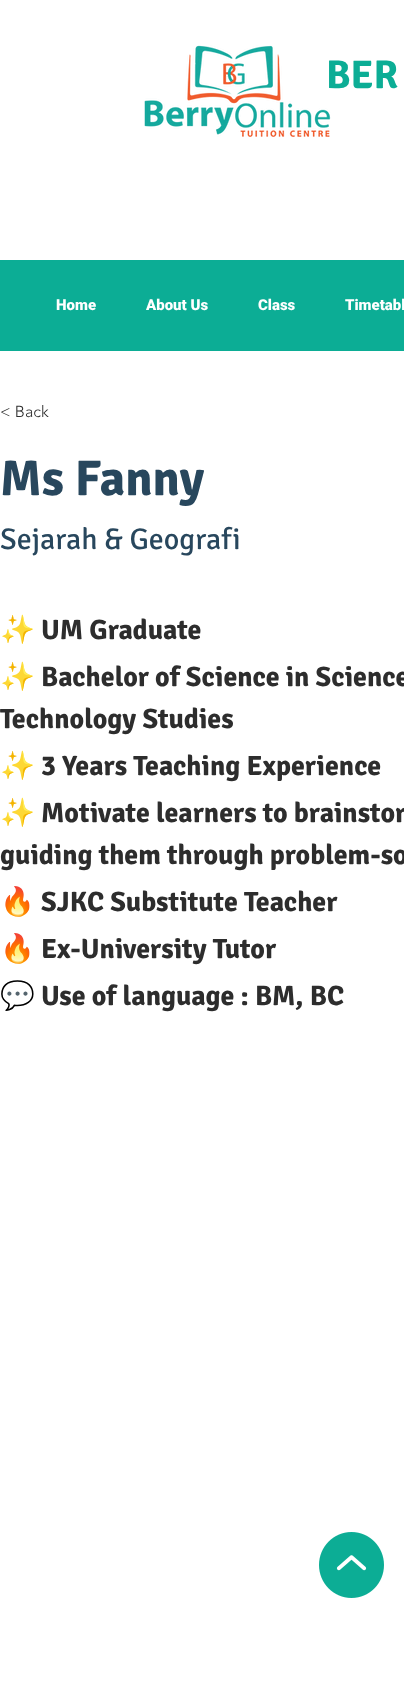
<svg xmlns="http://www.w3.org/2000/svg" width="404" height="1705">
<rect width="100%" height="100%" fill="#fff"/>
<text x="326" y="88" style="font-family:Signika;font-size:40px;font-weight:bold;fill:#0cad95">BER</text>
<image x="144" y="45" width="187" height="92" href="media/1.png"/>
<rect y="260" width="404" height="91" fill="#0cad95"/>
<text x="56" y="310" style="font-family:Roboto;font-size:15px;font-weight:900;fill:#fff">Home</text>
<text x="146" y="310" style="font-family:Roboto;font-size:15px;font-weight:900;fill:#fff">About Us</text>
<text x="258" y="310" style="font-family:Roboto;font-size:15px;font-weight:900;fill:#fff">Class</text>
<text x="345" y="310" style="font-family:Roboto;font-size:15px;font-weight:900;fill:#fff">Timetabl</text>
<text x="0" y="417" style="font-family:'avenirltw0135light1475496';font-size:16px;font-weight:300;fill:#2d2d2d">&lt; Back</text>
<text x="0" y="495" style="font-family:Signika;font-size:50px;font-weight:bold;fill:#28475d">Ms Fanny</text>
<text x="0" y="549" style="font-family:Signika;font-size:30px;fill:#28475d">Sejarah &amp; Geografi</text>
<text x="0" y="639" style="font-family:Noto Color Emoji;font-size:28px;font-weight:bold;fill:#2d2d2d">✨</text>
<text x="41" y="639" style="font-family:Signika;font-size:28px;font-weight:bold;fill:#2d2d2d">UM Graduate</text>
<text x="0" y="686" style="font-family:Noto Color Emoji;font-size:28px;font-weight:bold;fill:#2d2d2d">✨</text>
<text x="41" y="686" style="font-family:Signika;font-size:28px;font-weight:bold;fill:#2d2d2d">Bachelor of Science in Science</text>
<text x="0" y="728" style="font-family:Signika;font-size:28px;font-weight:bold;fill:#2d2d2d">Technology Studies</text>
<text x="0" y="775" style="font-family:Noto Color Emoji;font-size:28px;font-weight:bold;fill:#2d2d2d">✨</text>
<text x="41" y="775" style="font-family:Signika;font-size:28px;font-weight:bold;fill:#2d2d2d">3 Years Teaching Experience</text>
<text x="0" y="822" style="font-family:Noto Color Emoji;font-size:28px;font-weight:bold;fill:#2d2d2d">✨</text>
<text x="41" y="822" style="font-family:Signika;font-size:28px;font-weight:bold;fill:#2d2d2d">Motivate learners to brainstor</text>
<text x="0" y="864" style="font-family:Signika;font-size:28px;font-weight:bold;fill:#2d2d2d">guiding them through problem-so</text>
<text x="0" y="911" style="font-family:Noto Color Emoji;font-size:28px;font-weight:bold;fill:#2d2d2d">🔥</text>
<text x="41" y="911" style="font-family:Signika;font-size:28px;font-weight:bold;fill:#2d2d2d">SJKC Substitute Teacher</text>
<text x="0" y="958" style="font-family:Noto Color Emoji;font-size:28px;font-weight:bold;fill:#2d2d2d">🔥</text>
<text x="41" y="958" style="font-family:Signika;font-size:28px;font-weight:bold;fill:#2d2d2d">Ex-University Tutor</text>
<text x="0" y="1005" style="font-family:Noto Color Emoji;font-size:28px;font-weight:bold;fill:#2d2d2d">💬</text>
<text x="41" y="1005" style="font-family:Signika;font-size:28px;font-weight:bold;fill:#2d2d2d">Use of language : BM, BC</text>
<image x="319" y="1532" width="65" height="66" href="media/2.png"/>
</svg>
